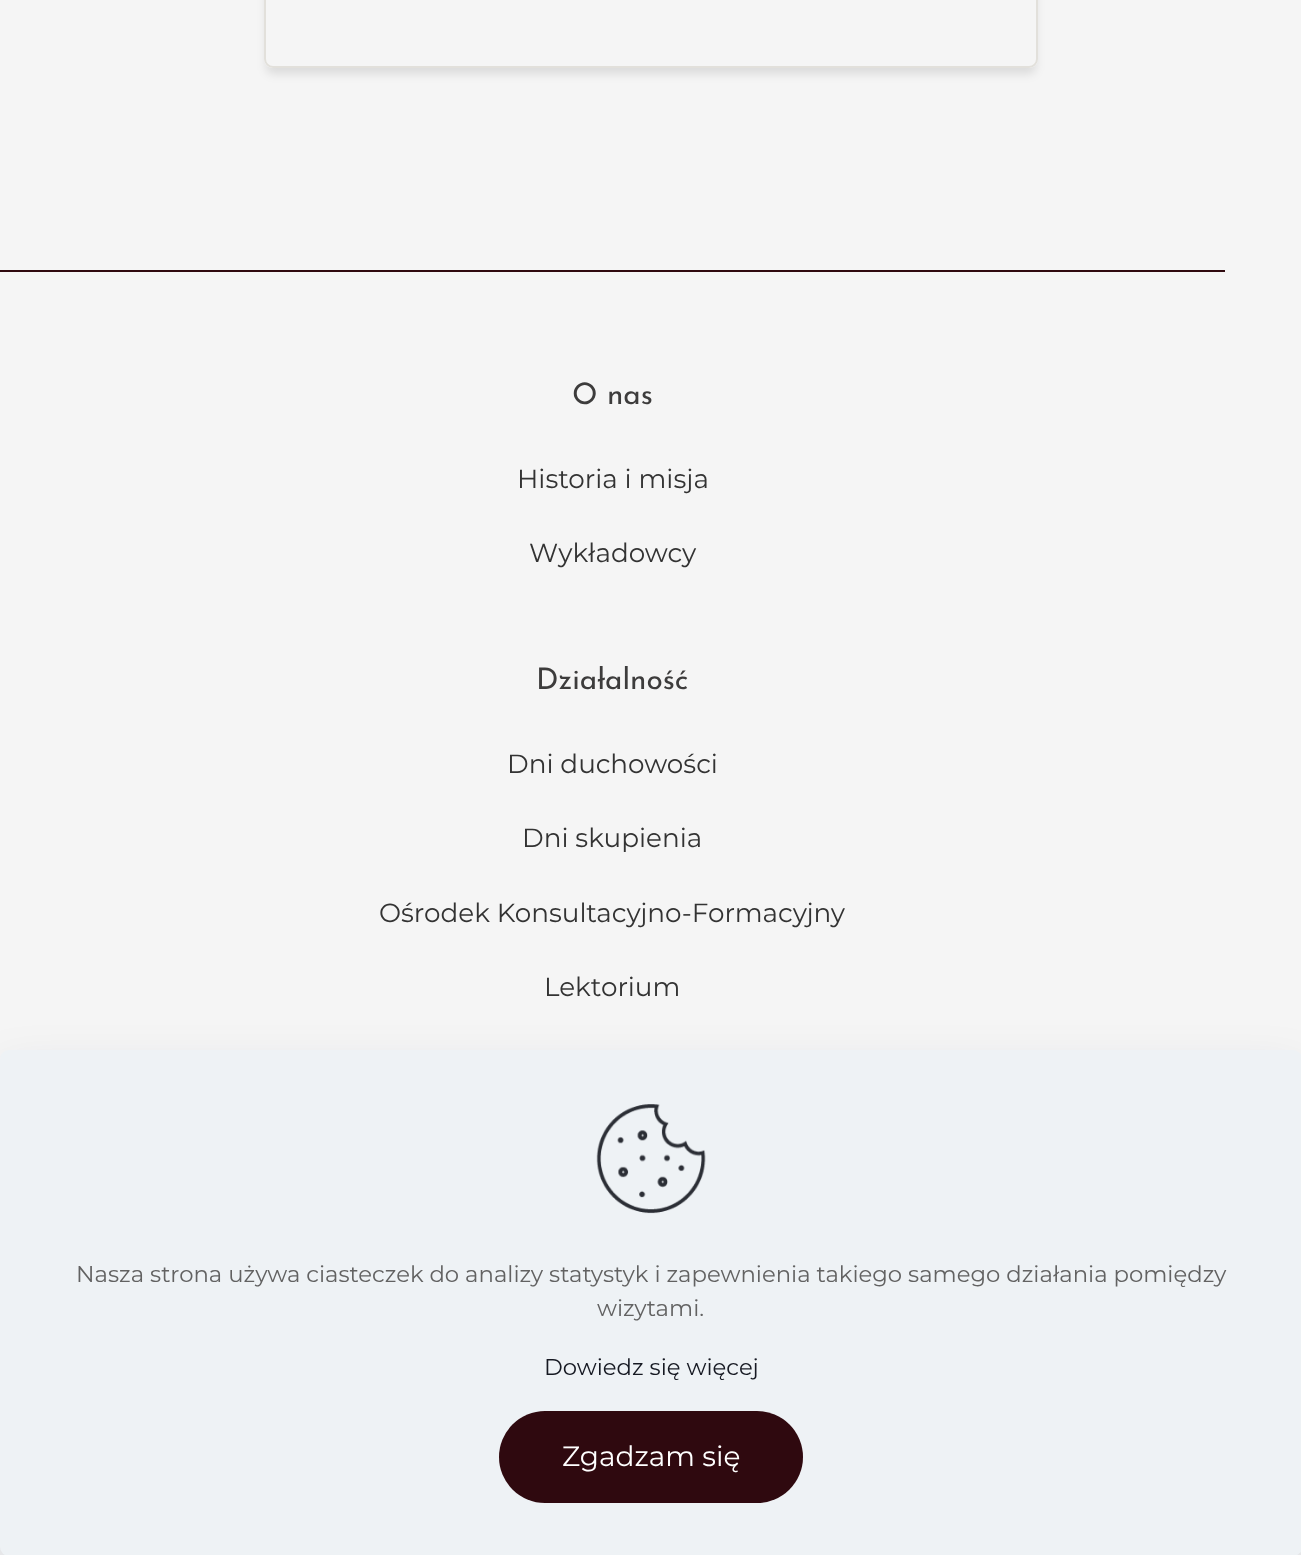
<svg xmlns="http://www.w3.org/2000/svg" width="1301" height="1555">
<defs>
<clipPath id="clip1"><path d="M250 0h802v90h-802zm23-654h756c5 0 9 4 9 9v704c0 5-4 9-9 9h-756c-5 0-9-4-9-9v-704c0-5 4-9 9-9z" clip-rule="evenodd"/></clipPath>
</defs>
<rect width="100%" height="100%" fill="#f5f5f5"/>
<g clip-path="url(#clip1)">
<rect x="266" y="-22" width="770" height="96" rx="7" fill="#0000001a" filter="blur(5px)"/>
</g>
<rect x="265" y="-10" width="772" height="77" rx="8" fill="none" stroke="#e2e0db" stroke-width="2"/>
<rect y="270" width="1225" height="2" fill="#2f090f"/>
<text x="572" y="404" style="font-family:Josefin Sans;font-size:29.75px;fill:#3d3c3c">O nas</text>
<text x="517" y="488" style="font-family:Montserrat;font-size:26.25px;fill:#333">Historia i misja</text>
<text x="529" y="562" style="font-family:Montserrat;font-size:26.25px;fill:#333">Wykładowcy</text>
<text x="536" y="689" style="font-family:Josefin Sans;font-size:29.75px;fill:#3d3c3c">Działalność</text>
<text x="507" y="773" style="font-family:Montserrat;font-size:26.25px;fill:#333">Dni duchowości</text>
<text x="522" y="847" style="font-family:Montserrat;font-size:26.25px;fill:#333">Dni skupienia</text>
<text x="379" y="922" style="font-family:Montserrat;font-size:26.25px;fill:#333">Ośrodek Konsultacyjno-Formacyjny</text>
<text x="544" y="996" style="font-family:Montserrat;font-size:26.25px;fill:#333">Lektorium</text>
<rect y="1076" width="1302" height="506" rx="9" fill="#01072721" filter="blur(26px)"/>
<rect y="1050" width="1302" height="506" rx="9" fill="#eef2f5"/>
<image x="596" y="1104" width="110" height="110" href="media/1.png"/>
<text x="76" y="1282" style="font-family:Montserrat;font-size:22.75px;fill:#626262">Nasza strona używa ciasteczek do analizy statystyk i zapewnienia takiego samego działania pomiędzy</text>
<text x="597" y="1316" style="font-family:Montserrat;font-size:22.75px;fill:#626262">wizytami.</text>
<text x="544" y="1375" style="font-family:Montserrat;font-size:22.75px;fill:#161922">Dowiedz się więcej</text>
<rect x="499" y="1411" width="304" height="92" rx="46" fill="#2f090f"/>
<text x="562" y="1466" style="font-family:Montserrat;font-size:28px;fill:#fff">Zgadzam się</text>
</svg>
